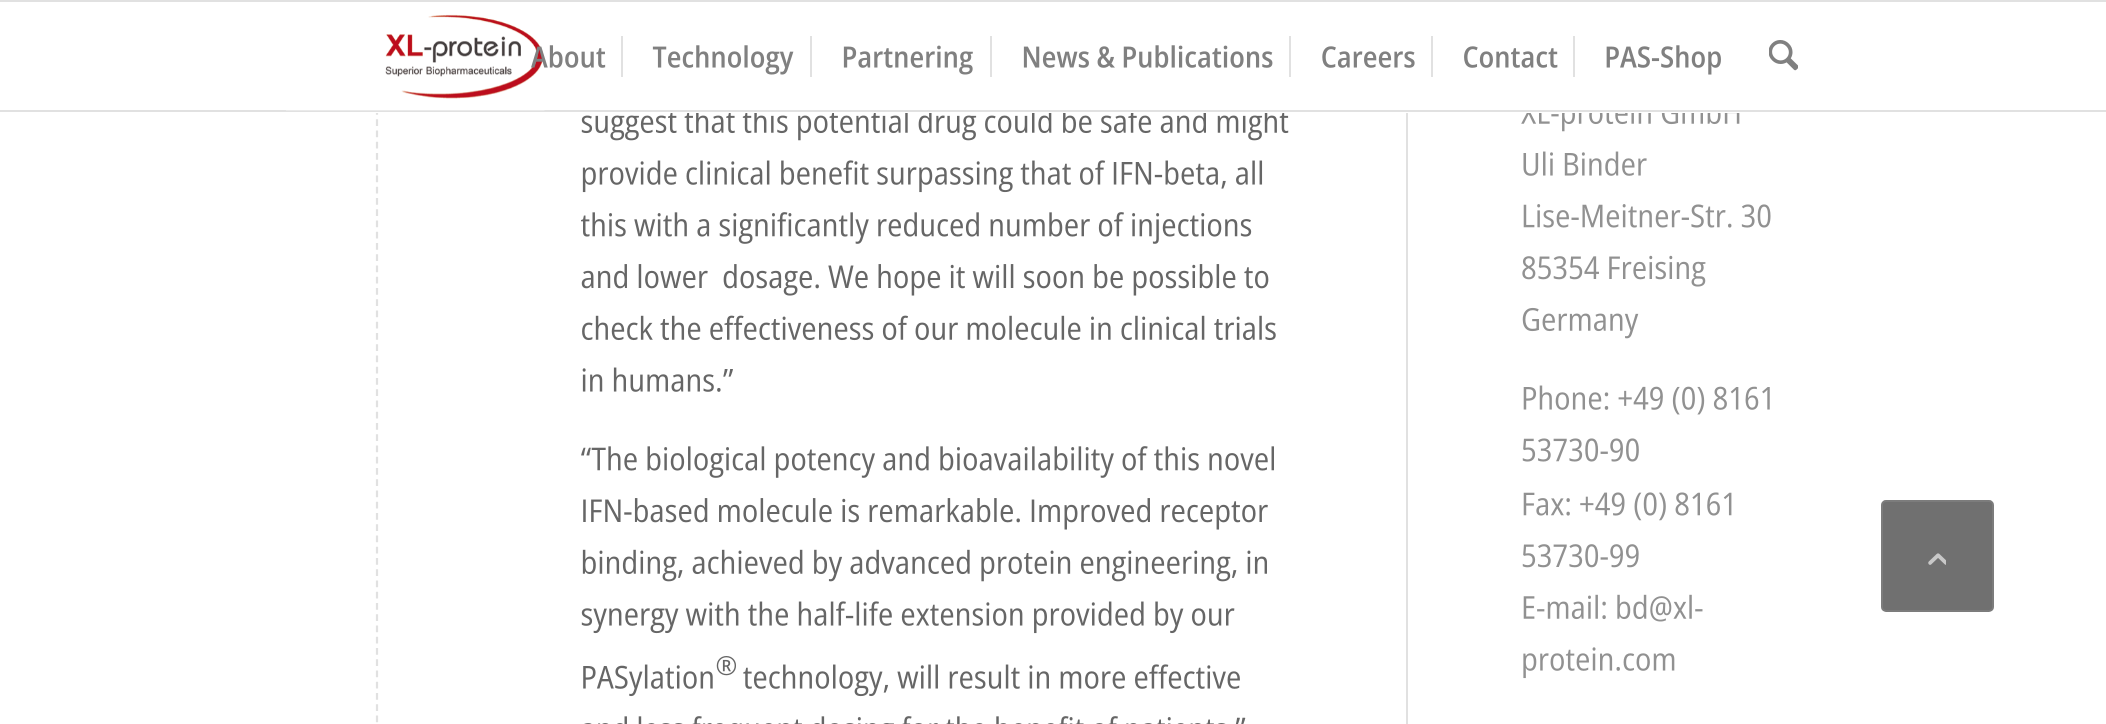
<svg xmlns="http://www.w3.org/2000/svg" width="2106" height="724">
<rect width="100%" height="100%" fill="#fff"/>
<path d="M377-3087v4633" fill="none" stroke="#e1e1e1" stroke-width="2.2" stroke-dasharray="6.75 4.5"/>
<rect width="2106" height="2" fill="#e1e1e1"/>
<rect x="375" y="2" width="4" height="111" fill="#fff"/>
<rect y="110" width="2106" height="2" fill="#e1e1e1"/>
<image x="286" y="14" width="259" height="97" href="media/1.png"/>
<image x="531" y="45" width="75" height="23" href="media/2.png"/>
<rect x="621" y="36" width="2" height="41" fill="#e1e1e1"/>
<image x="652" y="45" width="142" height="30" href="media/3.png"/>
<rect x="810" y="36" width="2" height="41" fill="#e1e1e1"/>
<image x="843" y="45" width="130" height="30" href="media/4.png"/>
<rect x="990" y="36" width="2" height="41" fill="#e1e1e1"/>
<image x="1023" y="45" width="250" height="23" href="media/5.png"/>
<rect x="1289" y="36" width="2" height="41" fill="#e1e1e1"/>
<image x="1322" y="46" width="93" height="22" href="media/6.png"/>
<rect x="1431" y="36" width="2" height="41" fill="#e1e1e1"/>
<image x="1464" y="46" width="94" height="22" href="media/7.png"/>
<rect x="1573" y="36" width="2" height="41" fill="#e1e1e1"/>
<image x="1606" y="45" width="115" height="30" href="media/8.png"/>
<image x="1769" y="40" width="29" height="31" href="media/9.png"/>
<rect x="1406" y="113" width="2" height="611" fill="#e1e1e1"/>
<image x="581" y="113" width="708" height="28" href="media/10.png"/>
<image x="582" y="160" width="681" height="33" href="media/11.png"/>
<image x="581" y="212" width="671" height="32" href="media/12.png"/>
<image x="581" y="264" width="688" height="32" href="media/13.png"/>
<image x="582" y="315" width="694" height="26" href="media/14.png"/>
<image x="582" y="367" width="151" height="25" href="media/15.png"/>
<image x="581" y="446" width="693" height="32" href="media/16.png"/>
<image x="583" y="498" width="685" height="32" href="media/17.png"/>
<image x="582" y="549" width="685" height="33" href="media/18.png"/>
<image x="581" y="601" width="654" height="33" href="media/19.png"/>
<image x="583" y="664" width="130" height="33" href="media/20.png"/>
<image x="716" y="656" width="20" height="20" href="media/21.png"/>
<image x="743" y="664" width="497" height="33" href="media/22.png"/>
<image x="584" y="716" width="662" height="8" href="media/23.png"/>
<image x="1521" y="113" width="219" height="19" href="media/24.png"/>
<image x="1523" y="151" width="124" height="25" href="media/25.png"/>
<image x="1523" y="204" width="248" height="24" href="media/26.png"/>
<image x="1522" y="255" width="184" height="32" href="media/27.png"/>
<image x="1522" y="307" width="117" height="32" href="media/28.png"/>
<image x="1523" y="385" width="247" height="30" href="media/29.png"/>
<image x="1522" y="438" width="117" height="24" href="media/30.png"/>
<image x="1523" y="492" width="209" height="29" href="media/31.png"/>
<image x="1522" y="544" width="117" height="24" href="media/32.png"/>
<image x="1523" y="594" width="180" height="28" href="media/33.png"/>
<image x="1523" y="647" width="152" height="32" href="media/34.png"/>
<rect x="1882" y="501" width="111" height="110" rx="4" fill="#707070" stroke="#7c7c7c" stroke-width="2"/>
<image x="1928" y="553" width="18" height="12" href="media/35.png"/>
</svg>
